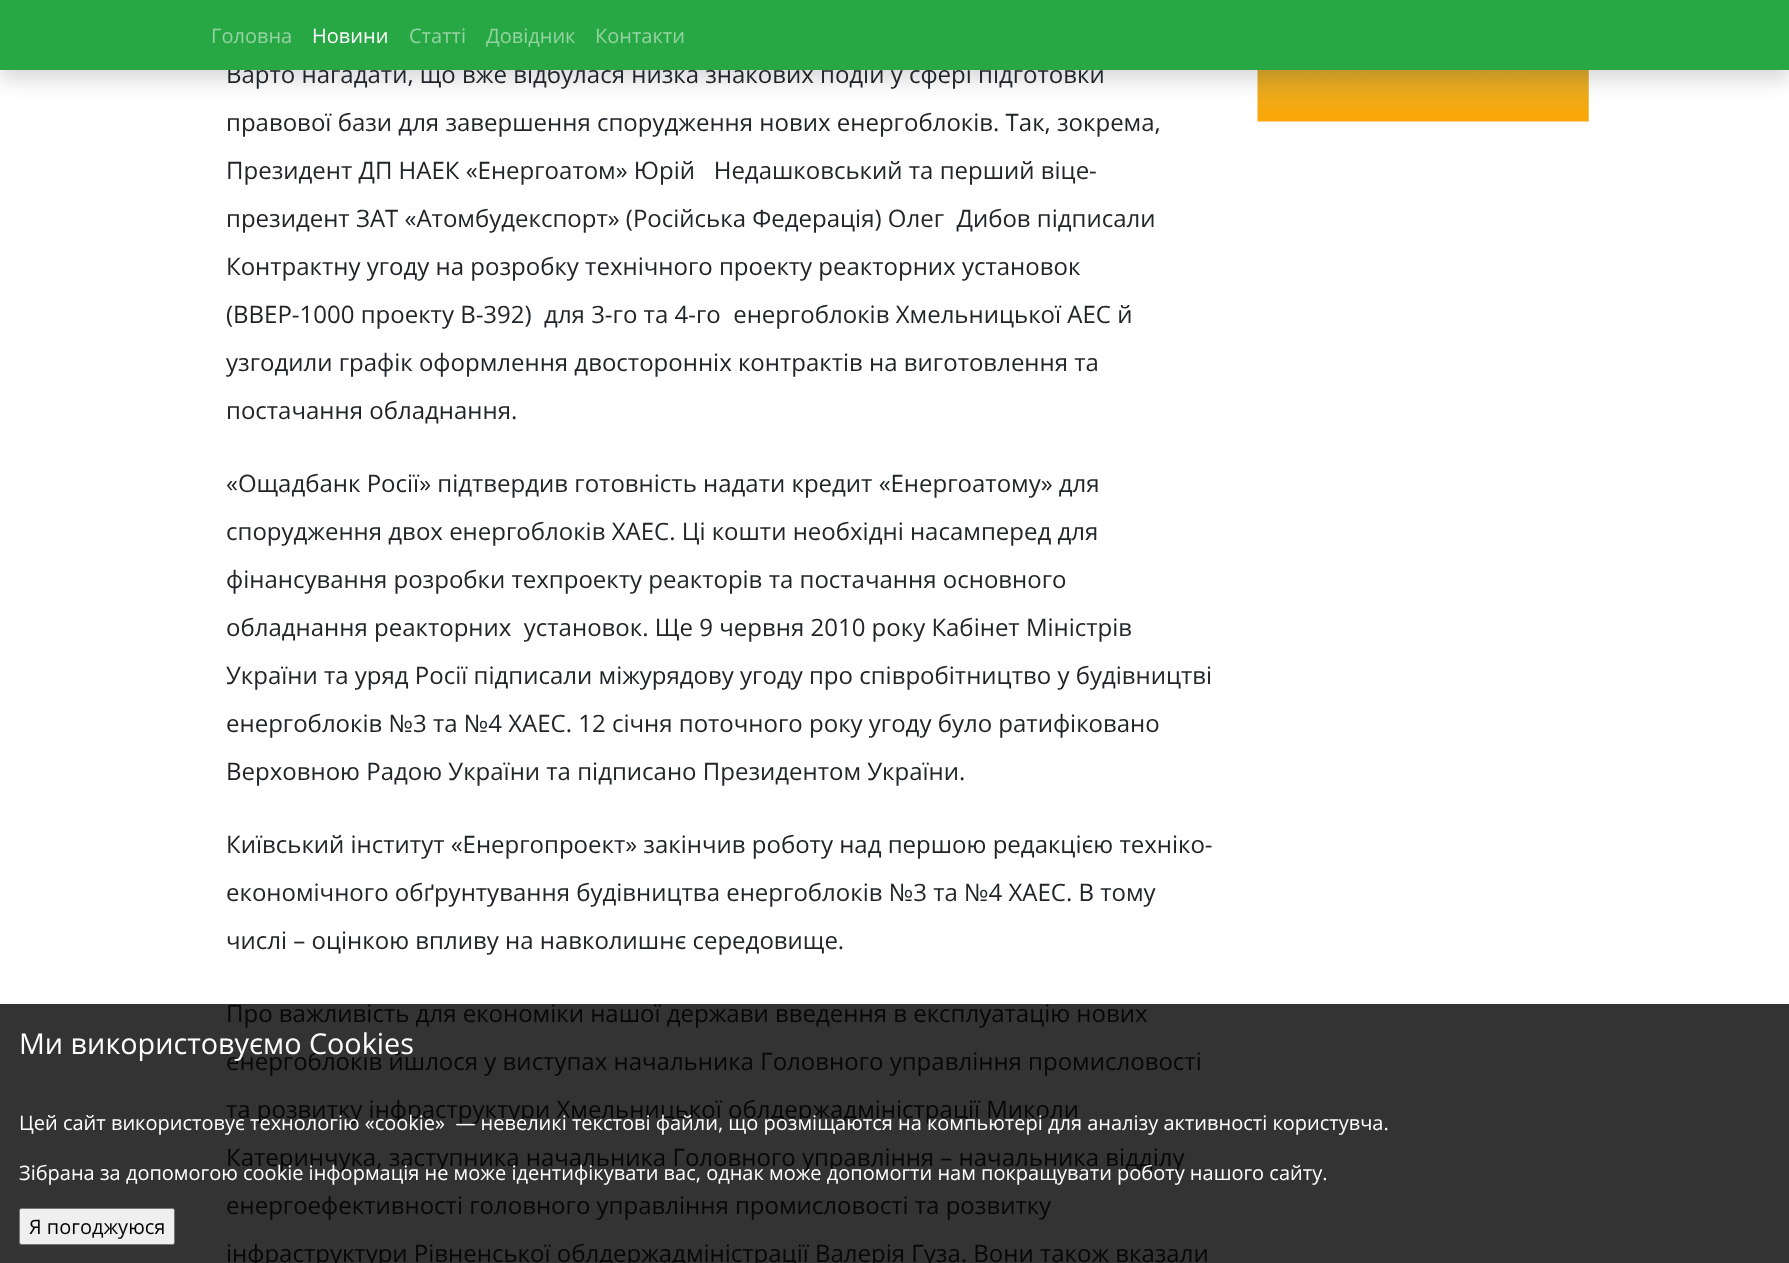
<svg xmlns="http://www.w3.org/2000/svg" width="1789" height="1263">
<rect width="100%" height="100%" fill="#fff"/>
<rect y="1004" width="1789" height="259" fill="#333"/>
<image x="1257" y="70" width="332" height="52" href="media/1.png"/>
<rect y="10" width="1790" height="70" fill="#00000026" filter="blur(10px)"/>
<text x="226" y="83" style="font-family:Open Sans;font-size:24px;fill:#212529">Варто нагадати, що вже відбулася низка знакових подій у сфері підготовки</text>
<rect width="1789" height="70" fill="#28a745"/>
<text x="211" y="43" style="font-family:Open Sans;font-size:20px;fill:#94d3a2">Головна</text>
<text x="312" y="43" style="font-family:Open Sans;font-size:20px;fill:#fff">Новини</text>
<text x="409" y="43" style="font-family:Open Sans;font-size:20px;fill:#94d3a2">Статті</text>
<text x="486" y="43" style="font-family:Open Sans;font-size:20px;fill:#94d3a2">Довідник</text>
<text x="595" y="43" style="font-family:Open Sans;font-size:20px;fill:#94d3a2">Контакти</text>
<text x="226" y="131" style="font-family:Open Sans;font-size:24px;fill:#212529">правової бази для завершення спорудження нових енергоблоків. Так, зокрема,</text>
<text x="226" y="179" style="font-family:Open Sans;font-size:24px;fill:#212529" xml:space="preserve">Президент ДП НАЕК «Енергоатом» Юрій   Недашковський та перший віце-</text>
<text x="226" y="227" style="font-family:Open Sans;font-size:24px;fill:#212529" xml:space="preserve">президент ЗАТ «Атомбудекспорт» (Російська Федерація) Олег  Дибов підписали</text>
<text x="226" y="275" style="font-family:Open Sans;font-size:24px;fill:#212529">Контрактну угоду на розробку технічного проекту реакторних установок</text>
<text x="226" y="323" style="font-family:Open Sans;font-size:24px;fill:#212529" xml:space="preserve">(ВВЕР-1000 проекту В-392)  для 3-го та 4-го  енергоблоків Хмельницької АЕС й</text>
<text x="226" y="371" style="font-family:Open Sans;font-size:24px;fill:#212529">узгодили графік оформлення двосторонніх контрактів на виготовлення та</text>
<text x="226" y="419" style="font-family:Open Sans;font-size:24px;fill:#212529">постачання обладнання.</text>
<text x="226" y="492" style="font-family:Open Sans;font-size:24px;fill:#212529">«Ощадбанк Росії» підтвердив готовність надати кредит «Енергоатому» для</text>
<text x="226" y="540" style="font-family:Open Sans;font-size:24px;fill:#212529">спорудження двох енергоблоків ХАЕС. Ці кошти необхідні насамперед для</text>
<text x="226" y="588" style="font-family:Open Sans;font-size:24px;fill:#212529">фінансування розробки техпроекту реакторів та постачання основного</text>
<text x="226" y="636" style="font-family:Open Sans;font-size:24px;fill:#212529" xml:space="preserve">обладнання реакторних  установок. Ще 9 червня 2010 року Кабінет Міністрів</text>
<text x="226" y="684" style="font-family:Open Sans;font-size:24px;fill:#212529">України та уряд Росії підписали міжурядову угоду про співробітництво у будівництві</text>
<text x="226" y="732" style="font-family:Open Sans;font-size:24px;fill:#212529">енергоблоків №3 та №4 ХАЕС. 12 січня поточного року угоду було ратифіковано</text>
<text x="226" y="780" style="font-family:Open Sans;font-size:24px;fill:#212529">Верховною Радою України та підписано Президентом України.</text>
<text x="226" y="853" style="font-family:Open Sans;font-size:24px;fill:#212529">Київський інститут «Енергопроект» закінчив роботу над першою редакцією техніко-</text>
<text x="226" y="901" style="font-family:Open Sans;font-size:24px;fill:#212529">економічного обґрунтування будівництва енергоблоків №3 та №4 ХАЕС. В тому</text>
<text x="226" y="949" style="font-family:Open Sans;font-size:24px;fill:#212529">числі – оцінкою впливу на навколишнє середовище.</text>
<text x="226" y="1022" style="font-family:Open Sans;font-size:24px;fill:#070708">Про важливість для економіки нашої держави введення в експлуатацію нових</text>
<text x="226" y="1070" style="font-family:Open Sans;font-size:24px;fill:#070708">енергоблоків йшлося у виступах начальника Головного управління промисловості</text>
<text x="226" y="1118" style="font-family:Open Sans;font-size:24px;fill:#070708">та розвитку інфраструктури Хмельницької облдержадміністрації Миколи</text>
<text x="226" y="1166" style="font-family:Open Sans;font-size:24px;fill:#070708">Катеринчука, заступника начальника Головного управління – начальника відділу</text>
<text x="226" y="1214" style="font-family:Open Sans;font-size:24px;fill:#070708">енергоефективності головного управління промисловості та розвитку</text>
<text x="226" y="1262" style="font-family:Open Sans;font-size:24px;fill:#070708">інфраструктури Рівненської облдержадміністрації Валерія Гуза. Вони також вказали</text>
<text x="19" y="1054" style="font-family:Open Sans;font-size:28.75px;fill:#fff">Ми використовуємо Cookies</text>
<text x="19" y="1130" style="font-family:Open Sans;font-size:20px;fill:#fff" xml:space="preserve">Цей сайт використовує технологію «cookie»  — невеликі текстові файли, що розміщаются на компьютері для аналізу активності користувча.</text>
<text x="19" y="1180" style="font-family:Open Sans;font-size:20px;fill:#fff">Зібрана за допомогою cookie інформація не може ідентифікувати вас, однак може допомогти нам покращувати роботу нашого сайту.</text>
<rect x="19.5" y="1208.5" width="155" height="36" rx="2" fill="#efefef" stroke="#767676"/>
<text x="29" y="1234" style="font-family:Open Sans;font-size:20px;fill:#000">Я погоджуюся</text>
</svg>
